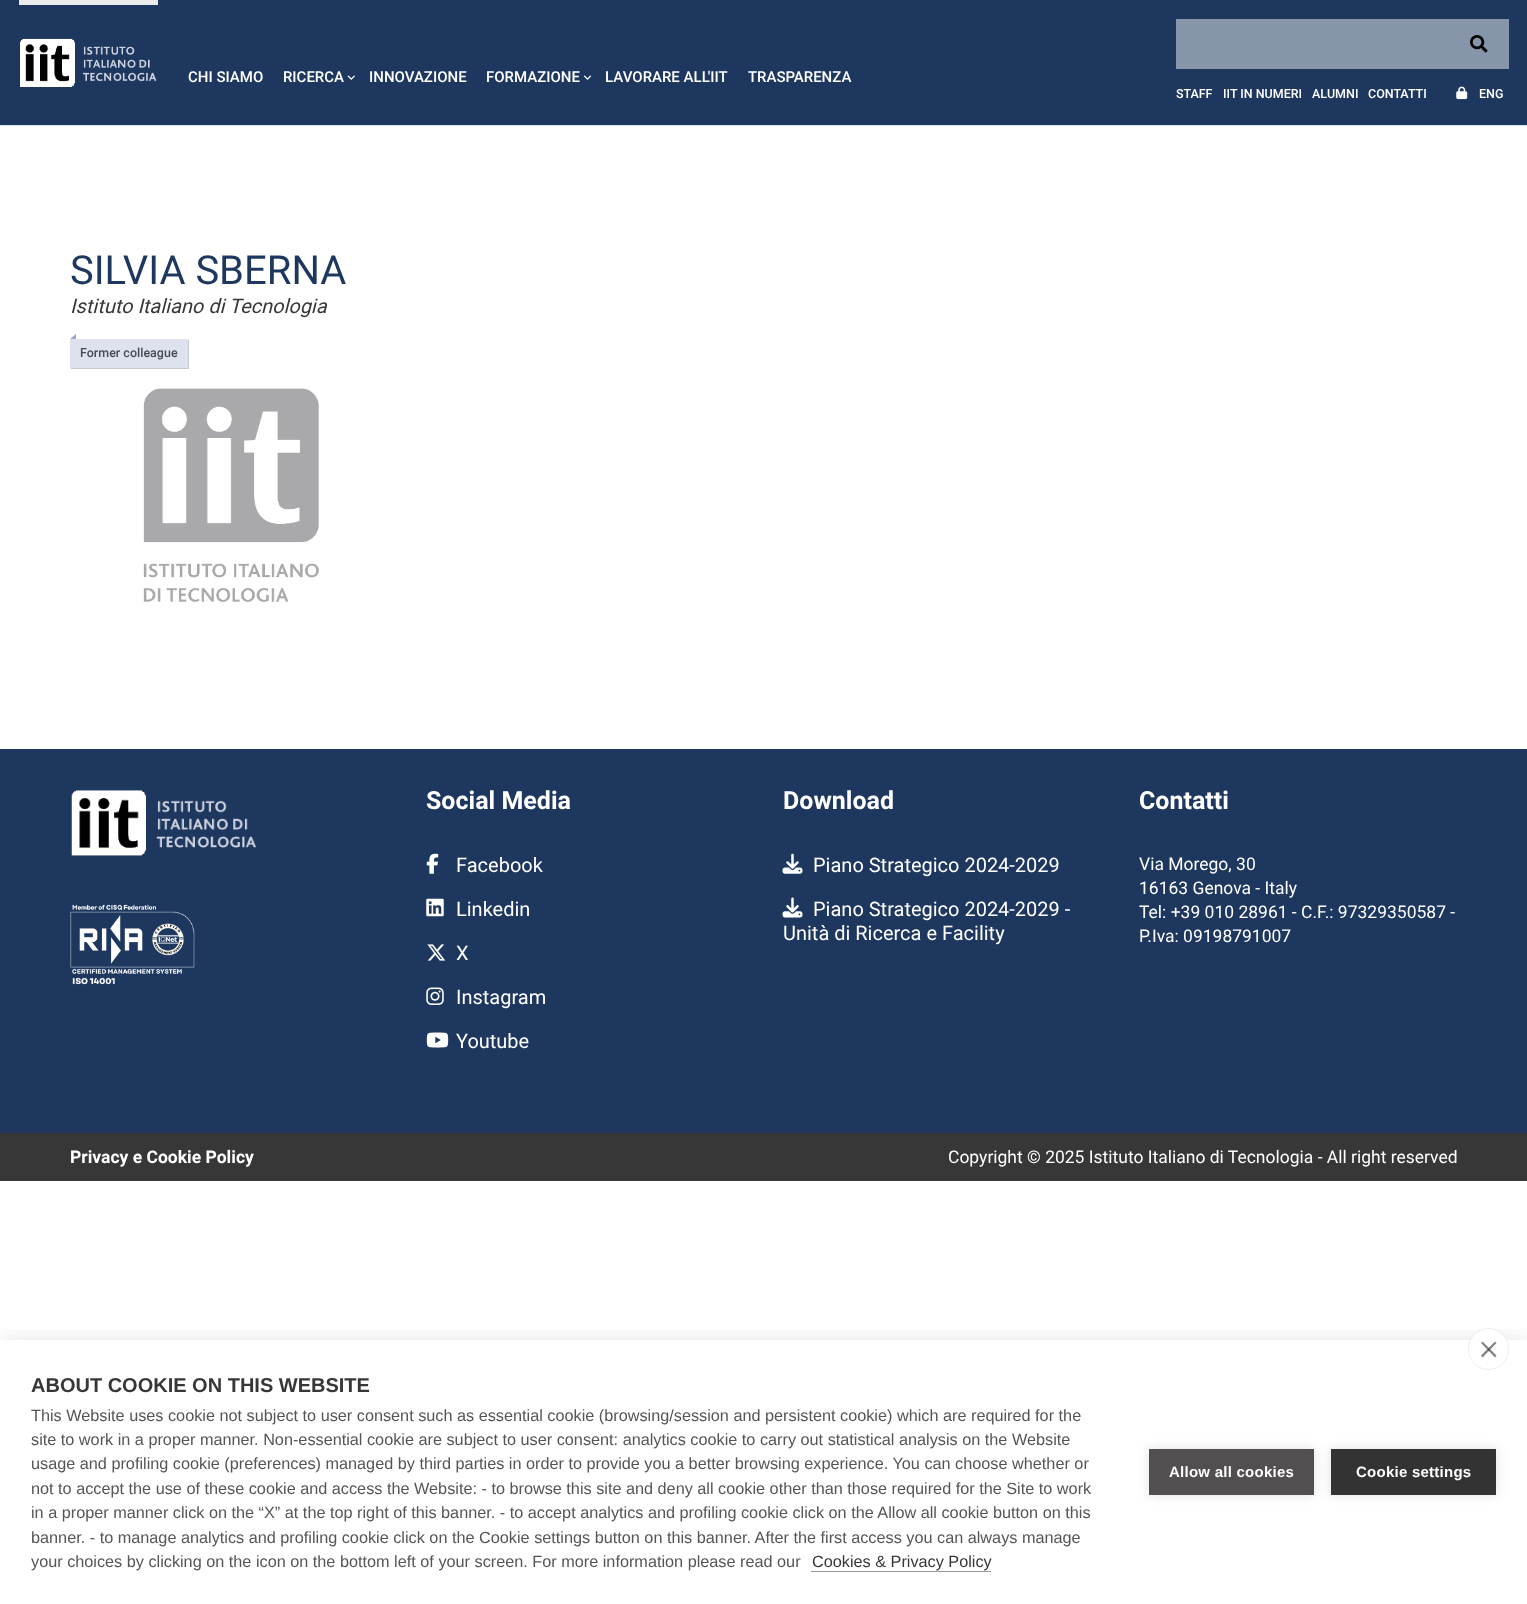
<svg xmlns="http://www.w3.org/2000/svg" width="1527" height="1604">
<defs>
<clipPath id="clip1"><rect x="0" y="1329" width="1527" height="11"/></clipPath>
</defs>
<rect width="100%" height="100%" fill="#fff"/>
<rect width="1527" height="125" fill="#1d375f"/>
<rect y="125" width="1527" height="1" fill="#dee2ef"/>
<rect x="19" width="139" height="5" fill="#ebebeb"/>
<image x="20" y="38" width="137" height="49" href="media/1.png"/>
<text x="188" y="82" style="font-family:Roboto;font-size:15px;font-weight:500;fill:#fff">CHI SIAMO</text>
<text x="283" y="82" style="font-family:Roboto;font-size:15px;font-weight:500;fill:#fff">RICERCA</text>
<image x="347" y="75" width="8" height="5" href="media/2.png"/>
<text x="369" y="82" style="font-family:Roboto;font-size:15px;font-weight:500;fill:#fff">INNOVAZIONE</text>
<text x="486" y="82" style="font-family:Roboto;font-size:15px;font-weight:500;fill:#fff">FORMAZIONE</text>
<image x="583" y="75" width="9" height="5" href="media/3.png"/>
<text x="605" y="82" style="font-family:Roboto;font-size:15px;font-weight:500;fill:#fff">LAVORARE ALL'IIT</text>
<text x="748" y="82" style="font-family:Roboto;font-size:15px;font-weight:500;fill:#fff">TRASPARENZA</text>
<rect x="1176" y="19" width="333" height="50" fill="#8795aa"/>
<image x="1470" y="35" width="18" height="18" href="media/4.png"/>
<text x="1176" y="98" style="font-family:Roboto;font-size:12.5px;font-weight:500;fill:#fff">STAFF</text>
<text x="1223" y="98" style="font-family:Roboto;font-size:12.5px;font-weight:500;fill:#fff">IIT IN NUMERI</text>
<text x="1312" y="98" style="font-family:Roboto;font-size:12.5px;font-weight:500;fill:#fff">ALUMNI</text>
<text x="1368" y="98" style="font-family:Roboto;font-size:12.5px;font-weight:500;fill:#fff">CONTATTI</text>
<image x="1456" y="86" width="12" height="14" href="media/5.png"/>
<text x="1479" y="98" style="font-family:Roboto;font-size:12.5px;font-weight:500;fill:#fff">ENG</text>
<text x="70" y="284" style="font-family:Roboto;font-size:40px;fill:#1d375f">SILVIA SBERNA</text>
<text x="70" y="313" style="font-family:Roboto;font-size:20px;font-style:italic;fill:#383737">Istituto Italiano di Tecnologia</text>
<rect x="71" y="340" width="118" height="29" fill="#4a4c534d" filter="blur(0.5px)"/>
<rect x="70" y="339" width="118" height="29" fill="#dee2ef"/>
<path d="M76 339h-6l6-5z" fill="#99a6ce"/>
<text x="80" y="357" style="font-family:Roboto;font-size:12.5px;font-weight:500;fill:#4a4c53">Former colleague</text>
<image x="143" y="388" width="176" height="214" href="media/6.png"/>
<rect y="749" width="1527" height="384" fill="#1d375f"/>
<image x="71" y="790" width="186" height="66" href="media/7.png"/>
<image x="70" y="904" width="125" height="81" href="media/8.png"/>
<text x="426" y="809" style="font-family:Roboto;font-size:25px;font-weight:bold;fill:#fff">Social Media</text>
<image x="426" y="853" width="13" height="21" href="media/9.png"/>
<text x="456" y="872" style="font-family:Roboto;font-size:20px;fill:#fff">Facebook</text>
<image x="426" y="898" width="18" height="19" href="media/10.png"/>
<text x="456" y="916" style="font-family:Roboto;font-size:20px;fill:#fff">Linkedin</text>
<image x="427" y="944" width="19" height="17" href="media/11.png"/>
<text x="456" y="960" style="font-family:Roboto;font-size:20px;fill:#fff">X</text>
<image x="426" y="987" width="18" height="18" href="media/12.png"/>
<text x="456" y="1004" style="font-family:Roboto;font-size:20px;fill:#fff">Instagram</text>
<image x="426" y="1032" width="23" height="16" href="media/13.png"/>
<text x="456" y="1048" style="font-family:Roboto;font-size:20px;fill:#fff">Youtube</text>
<text x="783" y="809" style="font-family:Roboto;font-size:25px;font-weight:bold;fill:#fff">Download</text>
<image x="782" y="853" width="21" height="21" href="media/14.png"/>
<text x="813" y="872" style="font-family:Roboto;font-size:20px;fill:#fff">Piano Strategico 2024-2029</text>
<image x="782" y="897" width="21" height="21" href="media/15.png"/>
<text x="813" y="916" style="font-family:Roboto;font-size:20px;fill:#fff">Piano Strategico 2024-2029 -</text>
<text x="783" y="940" style="font-family:Roboto;font-size:20px;fill:#fff">Unità di Ricerca e Facility</text>
<text x="1139" y="809" style="font-family:Roboto;font-size:25px;font-weight:bold;fill:#fff">Contatti</text>
<text x="1139" y="870" style="font-family:Roboto;font-size:17.5px;fill:#fff">Via Morego, 30</text>
<text x="1139" y="894" style="font-family:Roboto;font-size:17.5px;fill:#fff">16163 Genova - Italy</text>
<text x="1139" y="918" style="font-family:Roboto;font-size:17.5px;fill:#fff">Tel: +39 010 28961 - C.F.: 97329350587 -</text>
<text x="1139" y="942" style="font-family:Roboto;font-size:17.5px;fill:#fff">P.Iva: 09198791007</text>
<rect y="1133" width="1527" height="48" fill="#383737"/>
<text x="70" y="1163" style="font-family:Roboto;font-size:17.5px;font-weight:bold;fill:#fff">Privacy e Cookie Policy</text>
<text x="948" y="1163" style="font-family:Roboto;font-size:17.5px;fill:#fff">Copyright © 2025 Istituto Italiano di Tecnologia - All right reserved</text>
<g clip-path="url(#clip1)">
<rect y="1340" width="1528" height="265" fill="#0000001a" filter="blur(12.5px)"/>
</g>
<rect x="1468.5" y="1328.5" width="40" height="41" rx="20" fill="#fff" stroke="#eee"/>
<path d="M1481 1355.5l14-14l1.5 1.5l-14 14.5z" fill="#858585"/>
<path d="M1482.5 1341.5l14 14l-1.5 2l-14-14.5z" fill="#33333399"/>
<text x="31" y="1392" style="font-family:Liberation Sans;font-size:20px;font-weight:bold;fill:#383737">ABOUT COOKIE ON THIS WEBSITE</text>
<text x="31" y="1421" style="font-family:Liberation Sans;font-size:16.25px;fill:#555">This Website uses cookie not subject to user consent such as essential cookie (browsing/session and persistent cookie) which are required for the</text>
<text x="31" y="1445" style="font-family:Liberation Sans;font-size:16.25px;fill:#555">site to work in a proper manner. Non-essential cookie are subject to user consent: analytics cookie to carry out statistical analysis on the Website</text>
<text x="31" y="1469" style="font-family:Liberation Sans;font-size:16.25px;fill:#555">usage and profiling cookie (preferences) managed by third parties in order to provide you a better browsing experience. You can choose whether or</text>
<text x="31" y="1494" style="font-family:Liberation Sans;font-size:16.25px;fill:#555">not to accept the use of these cookie and access the Website: - to browse this site and deny all cookie other than those required for the Site to work</text>
<text x="31" y="1518" style="font-family:Liberation Sans;font-size:16.25px;fill:#555">in a proper manner click on the “X” at the top right of this banner. - to accept analytics and profiling cookie click on the Allow all cookie button on this</text>
<text x="31" y="1543" style="font-family:Liberation Sans;font-size:16.25px;fill:#555">banner. - to manage analytics and profiling cookie click on the Cookie settings button on this banner. After the first access you can always manage</text>
<text x="31" y="1567" style="font-family:Liberation Sans;font-size:16.25px;fill:#555">your choices by clicking on the icon on the bottom left of your screen. For more information please read our</text>
<text x="812" y="1567" style="font-family:Liberation Sans;font-size:16.25px;fill:#383737">Cookies &amp; Privacy Policy</text>
<rect x="811" y="1571" width="180" height="1" fill="#999"/>
<rect x="1149" y="1449" width="165" height="46" fill="#0000001f" filter="blur(6px)"/>
<rect x="1149" y="1449" width="165" height="46" fill="#524f50"/>
<text x="1169" y="1477" style="font-family:Liberation Sans;font-size:15px;font-weight:bold;letter-spacing:0.25px;fill:#fff">Allow all cookies</text>
<rect x="1331" y="1449" width="165" height="46" fill="#0000001f" filter="blur(6px)"/>
<rect x="1331" y="1449" width="165" height="46" fill="#333"/>
<text x="1356" y="1477" style="font-family:Liberation Sans;font-size:15px;font-weight:bold;letter-spacing:0.25px;fill:#fff">Cookie settings</text>
</svg>
